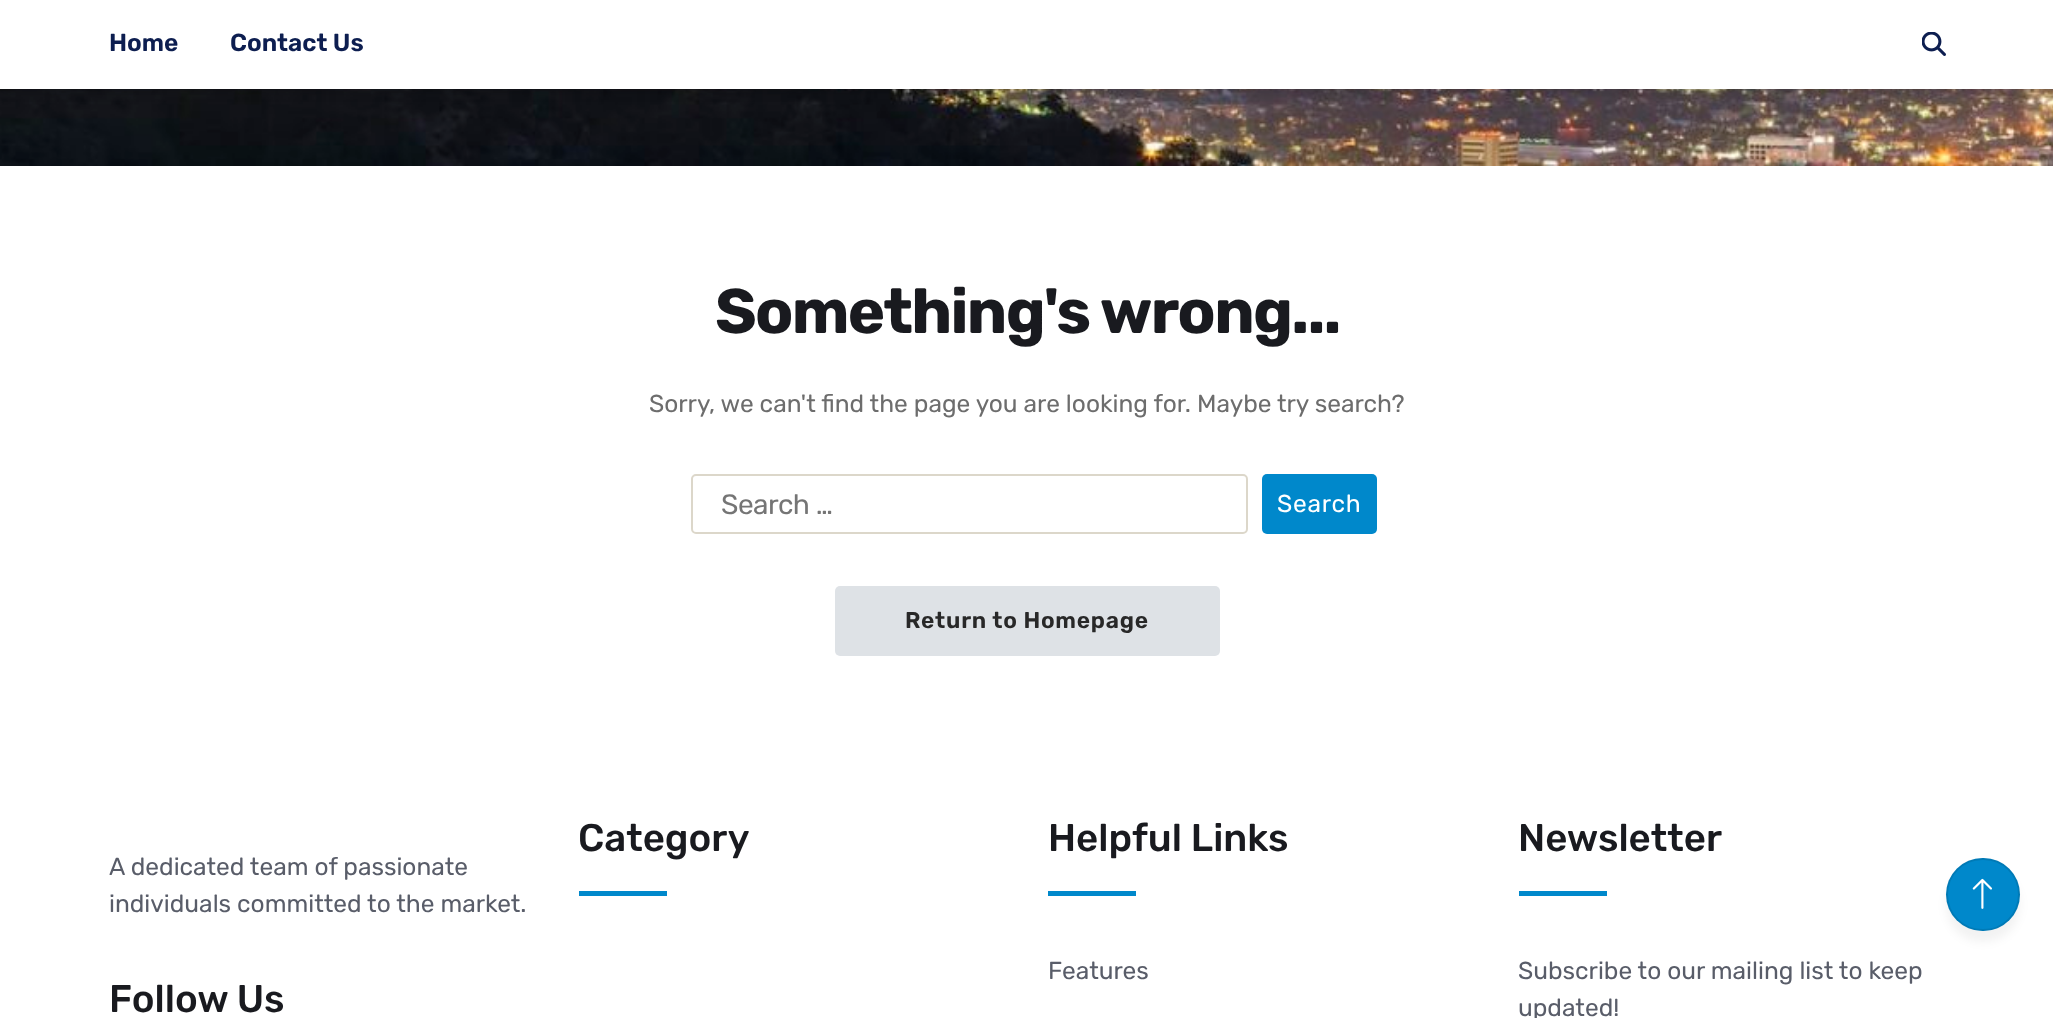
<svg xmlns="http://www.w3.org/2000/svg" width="2053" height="1018">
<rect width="100%" height="100%" fill="#fff"/>
<image x="0" y="89" width="2053" height="77" href="media/2.png"/>
<rect y="4" width="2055" height="89" fill="#00000026" filter="blur(4.5px)"/>
<rect width="2053" height="89" fill="#fff"/>
<text x="109" y="51" style="font-family:Rubik;font-size:24.5px;font-weight:600;fill:#0d1e50">Home</text>
<text x="230" y="51" style="font-family:Rubik;font-size:24.5px;font-weight:600;fill:#0d1e50">Contact Us</text>
<image x="1922" y="32" width="24" height="24" href="media/1.png"/>
<text x="715" y="333" style="font-family:Rubik;font-size:63px;font-weight:bold;letter-spacing:-1.7px;fill:#191a1f">Something's wrong...</text>
<text x="649" y="412" style="font-family:Rubik;font-size:24.5px;fill:#6d6d6d">Sorry, we can't find the page you are looking for. Maybe try search?</text>
<rect x="692" y="475" width="555" height="58" rx="4" fill="none" stroke="#dcd7ca" stroke-width="2"/>
<text x="721" y="514" style="font-family:Rubik;font-size:28px;letter-spacing:-0.5px;fill:#757575">Search …</text>
<rect x="1262" y="474" width="115" height="60" rx="5" fill="#0088cb"/>
<text x="1277" y="512" style="font-family:Rubik;font-size:24.5px;letter-spacing:0.75px;fill:#fff">Search</text>
<rect x="835" y="586" width="385" height="70" rx="5" fill="#dee2e6"/>
<text x="905" y="628" style="font-family:Rubik;font-size:22.75px;font-weight:600;letter-spacing:0.75px;fill:#282828">Return to Homepage</text>
<text x="109" y="875" style="font-family:Rubik;font-size:24.5px;fill:#595d69">A dedicated team of passionate</text>
<text x="109" y="912" style="font-family:Rubik;font-size:24.5px;fill:#595d69">individuals committed to the market.</text>
<text x="109" y="1012" style="font-family:Rubik;font-size:38.5px;font-weight:500;fill:#191a1f">Follow Us</text>
<text x="578" y="851" style="font-family:Rubik;font-size:38.5px;font-weight:500;fill:#191a1f">Category</text>
<rect x="579" y="891" width="88" height="5" fill="#0088cb"/>
<text x="1048" y="851" style="font-family:Rubik;font-size:38.5px;font-weight:500;fill:#191a1f">Helpful Links</text>
<rect x="1048" y="891" width="88" height="5" fill="#0088cb"/>
<text x="1048" y="979" style="font-family:Rubik;font-size:24.5px;fill:#595d69">Features</text>
<text x="1518" y="851" style="font-family:Rubik;font-size:38.5px;font-weight:500;fill:#191a1f">Newsletter</text>
<rect x="1519" y="891" width="88" height="5" fill="#0088cb"/>
<text x="1518" y="979" style="font-family:Rubik;font-size:24.5px;fill:#595d69">Subscribe to our mailing list to keep</text>
<text x="1518" y="1016" style="font-family:Rubik;font-size:24.5px;fill:#595d69">updated!</text>
<rect x="1946" y="868" width="74" height="74" rx="37" fill="#0000000d" filter="blur(5px)"/>
<rect x="1946" y="858" width="74" height="73" rx="36.5" fill="#0088cb"/>
<rect x="1947" y="859" width="72" height="71" rx="35.5" fill="none" stroke="#0000001a" stroke-width="2"/>
<image x="1972" y="878" width="20" height="31" href="media/3.png"/>
</svg>
